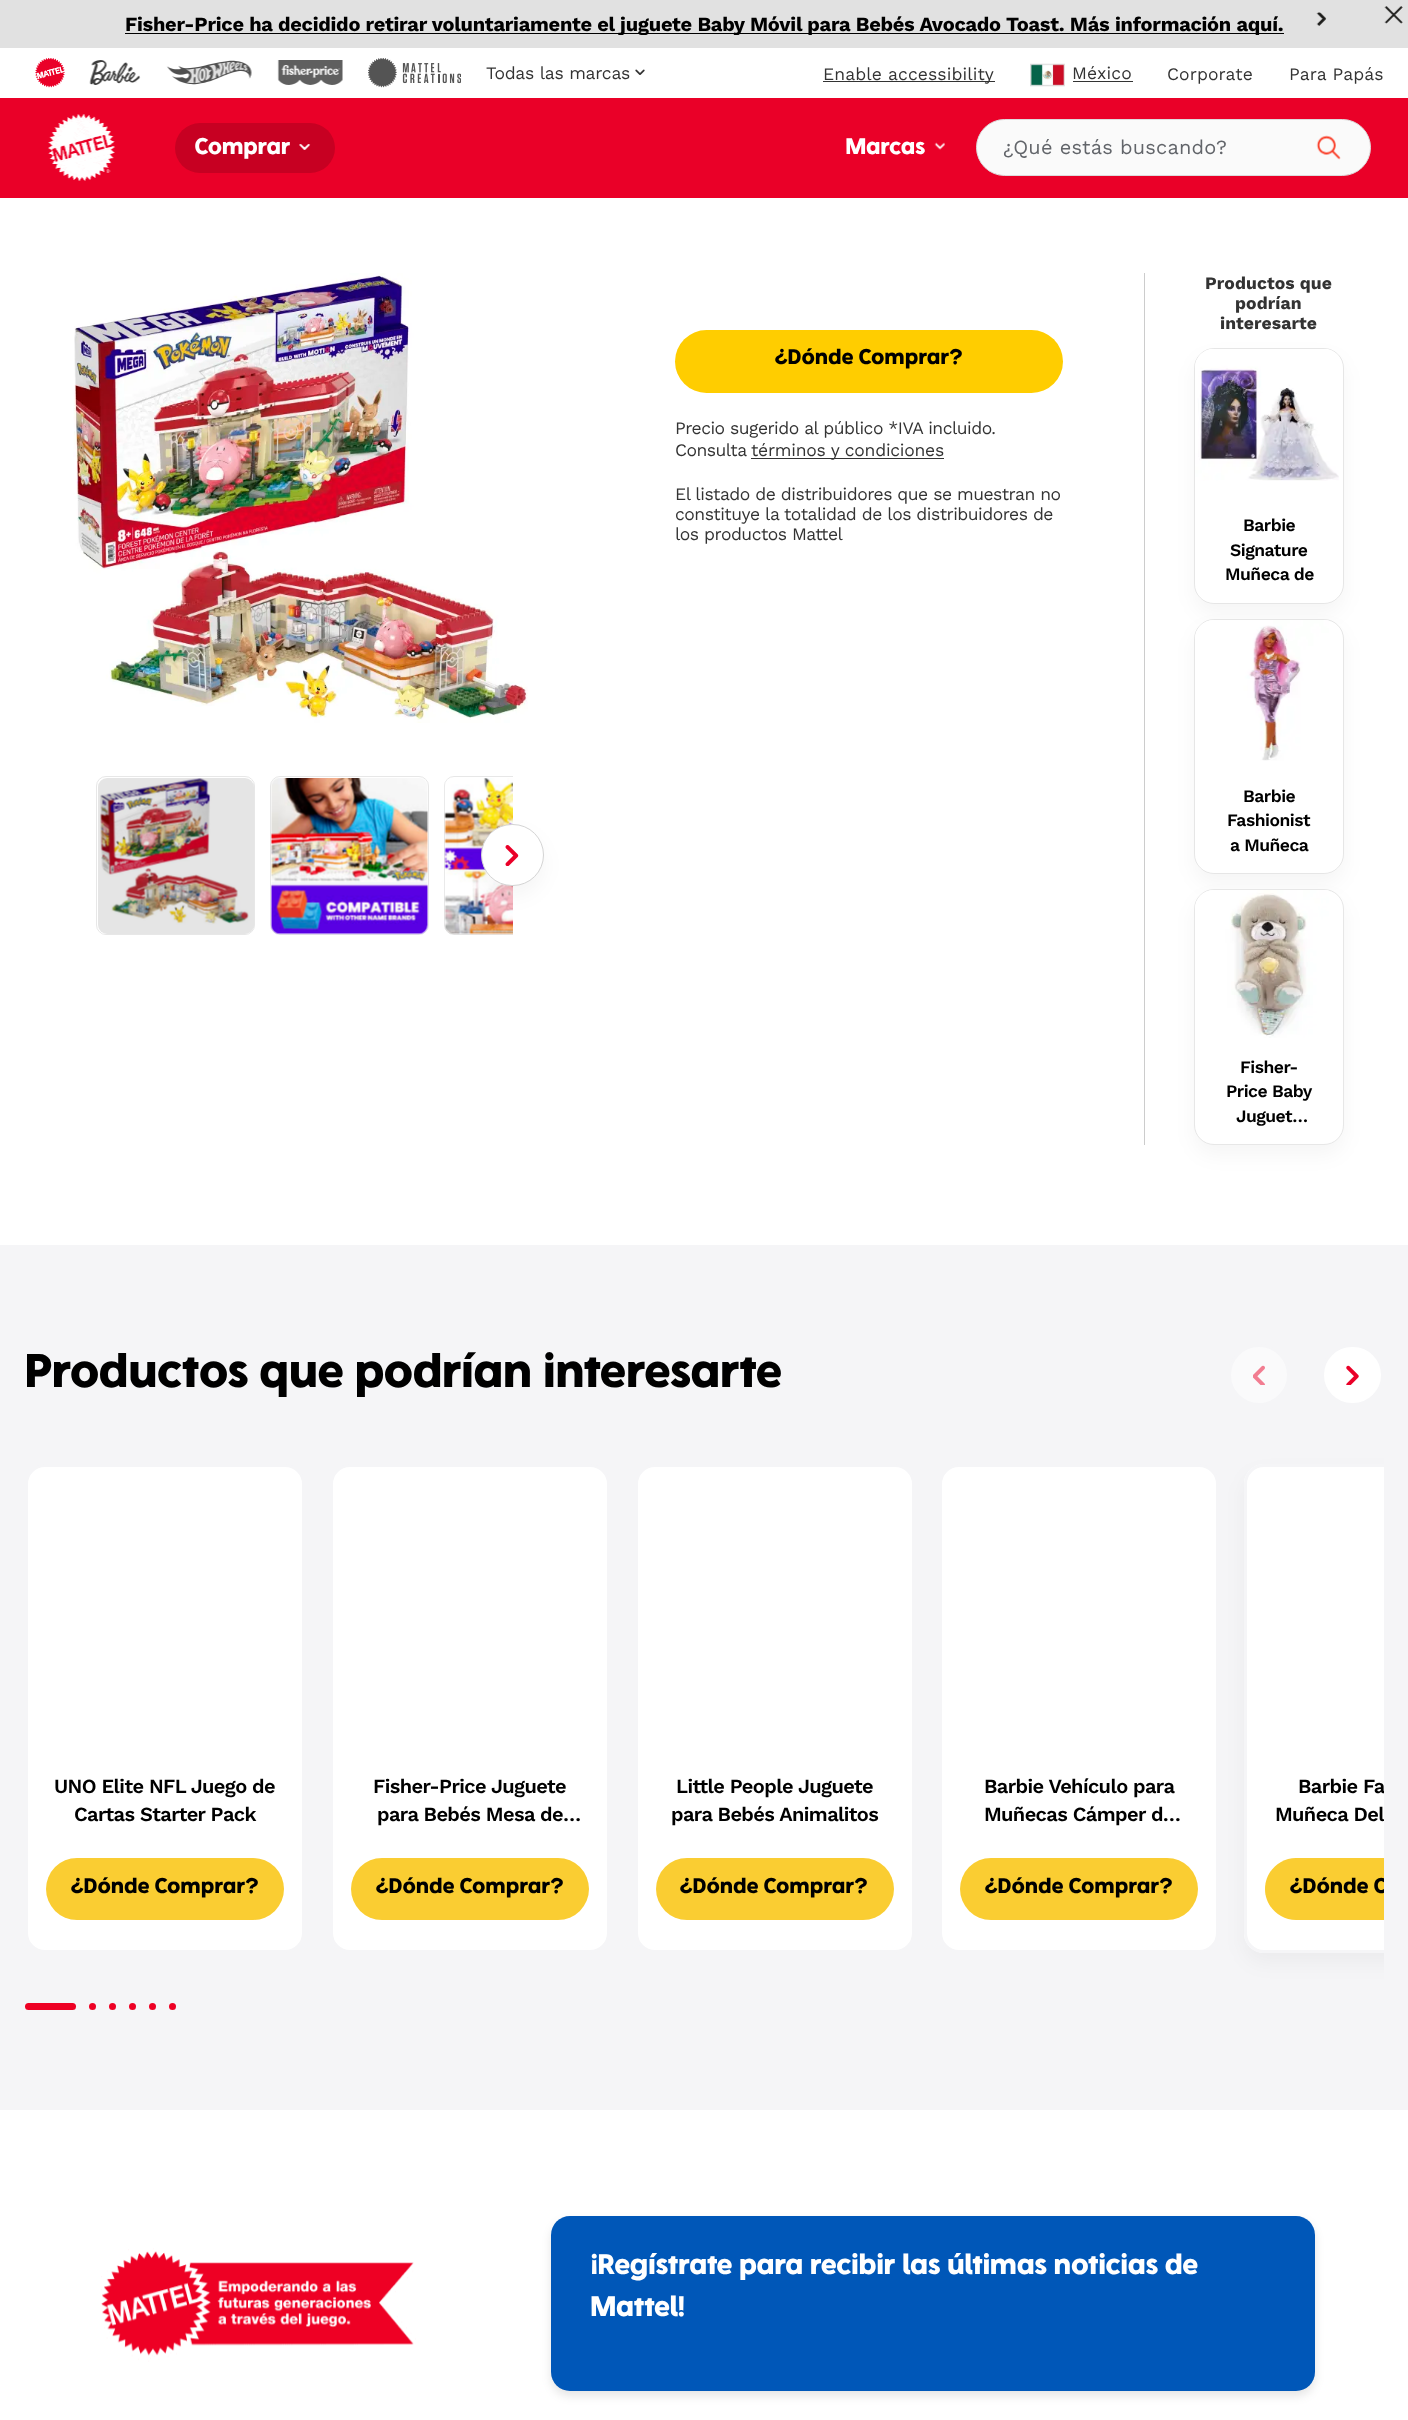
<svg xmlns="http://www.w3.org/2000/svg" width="1408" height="2420">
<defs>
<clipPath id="clip1"><rect y="13" width="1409" height="22"/></clipPath>
<clipPath id="clip2"><rect x="96" y="776" width="417" height="159"/></clipPath>
</defs>
<rect width="100%" height="100%" fill="#fff"/>
<rect width="1408" height="48" fill="#e1e1e1"/>
<rect x="125" y="33" width="1159" height="1" fill="#000"/>
<g clip-path="url(#clip1)">
<text x="125" y="31" style="font-family:Work Sans;font-size:20px;font-weight:bold;letter-spacing:-0.25px;fill:#000">Fisher-Price ha decidido retirar voluntariamente el juguete Baby Móvil para Bebés Avocado Toast. Más información aquí.</text>
</g>
<image x="1316" y="12" width="11" height="14" href="media/1.png"/>
<image x="1384" y="6" width="19" height="18" href="media/2.png"/>
<image x="35" y="58" width="30" height="30" href="media/3.png"/>
<image x="89" y="60" width="52" height="25" href="media/4.png"/>
<image x="166" y="60" width="86" height="25" href="media/5.png"/>
<image x="277" y="60" width="66" height="25" href="media/6.png"/>
<image x="368" y="58" width="93" height="30" href="media/7.png"/>
<text x="486" y="79" style="font-family:Work Sans;font-size:17.5px;letter-spacing:-0.25px;fill:#333">Todas las marcas</text>
<image x="635" y="69" width="10" height="6" href="media/8.png"/>
<rect x="823" y="81" width="172" height="1" fill="#333"/>
<text x="823" y="80" style="font-family:Work Sans;font-size:17.5px;letter-spacing:0.1px;fill:#333">Enable accessibility</text>
<image x="1030" y="63" width="35" height="24" href="media/9.png"/>
<text x="1072" y="79" style="font-family:Work Sans;font-size:17.5px;letter-spacing:0.2px;fill:#333">México</text>
<rect x="1073" y="81" width="60" height="1" fill="#333"/>
<text x="1167" y="80" style="font-family:Work Sans;font-size:17.5px;letter-spacing:0.1px;fill:#333">Corporate</text>
<text x="1289" y="80" style="font-family:Work Sans;font-size:17.5px;letter-spacing:0.1px;fill:#333">Para Papás</text>
<rect y="98" width="1408" height="100" fill="#ea0028"/>
<image x="48" y="114" width="68" height="67" href="media/10.png"/>
<rect x="175" y="123" width="160" height="50" rx="25" fill="#c70022"/>
<text x="195" y="154" style="font-family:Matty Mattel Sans;font-size:24px;font-weight:bold;letter-spacing:0.25px;fill:#fff">Comprar</text>
<image x="299" y="144" width="12" height="6" href="media/11.png"/>
<text x="846" y="154" style="font-family:Matty Mattel Sans;font-size:24px;font-weight:bold;letter-spacing:0.25px;fill:#fff">Marcas</text>
<image x="934" y="142" width="11" height="8" href="media/12.png"/>
<rect x="976.5" y="119.5" width="394" height="56" rx="28" fill="#fafafa" stroke="#dcdcdc"/>
<text x="1003" y="154" style="font-family:Work Sans;font-size:20px;letter-spacing:0.2px;fill:#62656a">¿Qué estás buscando?</text>
<image x="1316" y="135" width="25" height="25" href="media/13.png"/>
<image x="73" y="273" width="455" height="450" href="media/14.png"/>
<rect x="96.5" y="776.5" width="158" height="158" rx="9.5" fill="none" stroke="#e7e7e7"/>
<image x="100" y="778" width="152" height="156" href="media/15.png"/>
<rect x="98" y="778" width="156" height="156" rx="9" fill="#0000001a"/>
<rect x="270.5" y="776.5" width="158" height="158" rx="9.5" fill="none" stroke="#e7e7e7"/>
<image x="270" y="778" width="158" height="157" href="media/16.png"/>
<g clip-path="url(#clip2)">
<rect x="444.5" y="776.5" width="158" height="158" rx="9.5" fill="none" stroke="#e7e7e7"/>
</g>
<image x="444" y="778" width="69" height="157" href="media/17.png"/>
<rect x="481" y="834" width="63" height="62" rx="31" fill="#0000000a" filter="blur(10px)"/>
<rect x="481.5" y="824.5" width="62" height="61" rx="30.5" fill="#fff" stroke="#d4d4d4"/>
<image x="505" y="845" width="14" height="21" href="media/18.png"/>
<rect x="675" y="330" width="388" height="63" rx="31.5" fill="#ffcd00"/>
<text x="775" y="364" style="font-family:Matty Mattel Sans;font-size:22.5px;font-weight:bold;letter-spacing:0.4px;fill:#000">¿Dónde Comprar?</text>
<text x="675" y="434" style="font-family:Work Sans;font-size:17.5px;letter-spacing:-0.5px;fill:#333">Precio sugerido al público *IVA incluido.</text>
<text x="675" y="456" style="font-family:Work Sans;font-size:17.5px;letter-spacing:-0.5px;fill:#333">Consulta</text>
<rect x="751" y="458" width="193" height="1" fill="#333"/>
<text x="751" y="456" style="font-family:Work Sans;font-size:17.5px;letter-spacing:-0.25px;fill:#333">términos y condiciones</text>
<text x="675" y="500" style="font-family:Work Sans;font-size:17.5px;letter-spacing:-0.5px;fill:#333">El listado de distribuidores que se muestran no</text>
<text x="675" y="520" style="font-family:Work Sans;font-size:17.5px;letter-spacing:-0.5px;fill:#333">constituye la totalidad de los distribuidores de</text>
<text x="675" y="540" style="font-family:Work Sans;font-size:17.5px;letter-spacing:-0.5px;fill:#333">los productos Mattel</text>
<rect x="1144" y="273" width="1" height="872" fill="#ccc"/>
<text x="1205" y="289" style="font-family:Work Sans;font-size:17.5px;font-weight:bold;letter-spacing:0.1px;fill:#333">Productos que</text>
<text x="1235" y="309" style="font-family:Work Sans;font-size:17.5px;font-weight:bold;letter-spacing:0.1px;fill:#333">podrían</text>
<text x="1220" y="329" style="font-family:Work Sans;font-size:17.5px;font-weight:bold;letter-spacing:0.1px;fill:#333">interesarte</text>
<rect x="1194" y="358" width="150" height="256" rx="20" fill="#0000000a" filter="blur(10px)"/>
<rect x="1194" y="348" width="150" height="256" rx="20" fill="#fff"/>
<rect x="1194.5" y="348.5" width="149" height="255" rx="19.5" fill="none" stroke="#0e0e0e1a"/>
<image x="1195" y="349" width="144" height="132" href="media/19.png"/>
<text x="1243" y="531" style="font-family:Work Sans;font-size:17.5px;font-weight:600;letter-spacing:-0.5px;fill:#000">Barbie</text>
<text x="1230" y="556" style="font-family:Work Sans;font-size:17.5px;font-weight:600;letter-spacing:-0.5px;fill:#000">Signature</text>
<text x="1225" y="580" style="font-family:Work Sans;font-size:17.5px;font-weight:600;letter-spacing:-0.5px;fill:#000">Muñeca de</text>
<rect x="1194" y="629" width="150" height="255" rx="20" fill="#0000000a" filter="blur(10px)"/>
<rect x="1194" y="619" width="150" height="255" rx="20" fill="#fff"/>
<rect x="1194.5" y="619.5" width="149" height="254" rx="19.5" fill="none" stroke="#0e0e0e1a"/>
<image x="1195" y="620" width="134" height="141" href="media/20.png"/>
<text x="1243" y="802" style="font-family:Work Sans;font-size:17.5px;font-weight:600;letter-spacing:-0.5px;fill:#000">Barbie</text>
<text x="1227" y="826" style="font-family:Work Sans;font-size:17.5px;font-weight:600;letter-spacing:-0.5px;fill:#000">Fashionist</text>
<text x="1230" y="851" style="font-family:Work Sans;font-size:17.5px;font-weight:600;letter-spacing:-0.5px;fill:#000">a Muñeca</text>
<rect x="1194" y="899" width="150" height="256" rx="20" fill="#0000000a" filter="blur(10px)"/>
<rect x="1194.5" y="889.5" width="149" height="255" rx="19.5" fill="#fff" stroke="#e7e7e7"/>
<image x="1195" y="890" width="134" height="148" href="media/21.png"/>
<text x="1240" y="1073" style="font-family:Work Sans;font-size:17.5px;font-weight:600;letter-spacing:-0.5px;fill:#000">Fisher-</text>
<text x="1226" y="1097" style="font-family:Work Sans;font-size:17.5px;font-weight:600;letter-spacing:-0.5px;fill:#000">Price Baby</text>
<text x="1236" y="1122" style="font-family:Work Sans;font-size:17.5px;font-weight:600;letter-spacing:-0.5px;fill:#000">Juguet…</text>
<rect y="1245" width="1384" height="865" fill="#f5f5f7"/>
<text x="25" y="1387" style="font-family:Matty Mattel Sans;font-size:50px;font-weight:bold;letter-spacing:0.25px;fill:#000">Productos que podrían interesarte</text>
<circle cx="1259" cy="1375" r="29.5" fill="#fafafb" stroke="#f5f5f7" stroke-width="3"/>
<image x="1253" y="1365" width="12" height="20" href="media/22.png"/>
<rect x="1322.5" y="1345.5" width="60" height="59" rx="29.5" fill="#fff" stroke="#f5f5f7" stroke-width="3"/>
<image x="1346" y="1365" width="13" height="20" href="media/23.png"/>
<rect x="26.5" y="1465.5" width="277" height="486" rx="18.5" fill="#fff" stroke="#f5f5f7" stroke-width="3"/>
<text x="54" y="1793" style="font-family:Work Sans;font-size:20px;font-weight:600;letter-spacing:-0.6px;fill:#000">UNO Elite NFL Juego de</text>
<text x="74" y="1821" style="font-family:Work Sans;font-size:20px;font-weight:600;letter-spacing:-0.6px;fill:#000">Cartas Starter Pack</text>
<rect x="46" y="1858" width="238" height="62" rx="31" fill="#facd32"/>
<text x="71" y="1893" style="font-family:Matty Mattel Sans;font-size:22.5px;font-weight:bold;letter-spacing:0.4px;fill:#000">¿Dónde Comprar?</text>
<rect x="331.5" y="1465.5" width="277" height="486" rx="18.5" fill="#fff" stroke="#f5f5f7" stroke-width="3"/>
<text x="373" y="1793" style="font-family:Work Sans;font-size:20px;font-weight:600;letter-spacing:-0.6px;fill:#000">Fisher-Price Juguete</text>
<text x="377" y="1821" style="font-family:Work Sans;font-size:20px;font-weight:600;letter-spacing:-0.6px;fill:#000">para Bebés Mesa de…</text>
<rect x="351" y="1858" width="238" height="62" rx="31" fill="#facd32"/>
<text x="376" y="1893" style="font-family:Matty Mattel Sans;font-size:22.5px;font-weight:bold;letter-spacing:0.4px;fill:#000">¿Dónde Comprar?</text>
<rect x="636.5" y="1465.5" width="277" height="486" rx="18.5" fill="#fff" stroke="#f5f5f7" stroke-width="3"/>
<text x="676" y="1793" style="font-family:Work Sans;font-size:20px;font-weight:600;letter-spacing:-0.6px;fill:#000">Little People Juguete</text>
<text x="671" y="1821" style="font-family:Work Sans;font-size:20px;font-weight:600;letter-spacing:-0.6px;fill:#000">para Bebés Animalitos</text>
<rect x="656" y="1858" width="238" height="62" rx="31" fill="#facd32"/>
<text x="680" y="1893" style="font-family:Matty Mattel Sans;font-size:22.5px;font-weight:bold;letter-spacing:0.4px;fill:#000">¿Dónde Comprar?</text>
<rect x="940.5" y="1465.5" width="277" height="486" rx="18.5" fill="#fff" stroke="#f5f5f7" stroke-width="3"/>
<text x="984" y="1793" style="font-family:Work Sans;font-size:20px;font-weight:600;letter-spacing:-0.6px;fill:#000">Barbie Vehículo para</text>
<text x="984" y="1821" style="font-family:Work Sans;font-size:20px;font-weight:600;letter-spacing:-0.6px;fill:#000">Muñecas Cámper d…</text>
<rect x="960" y="1858" width="238" height="62" rx="31" fill="#facd32"/>
<text x="985" y="1893" style="font-family:Matty Mattel Sans;font-size:22.5px;font-weight:bold;letter-spacing:0.4px;fill:#000">¿Dónde Comprar?</text>
<rect x="1244" y="1474" width="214" height="489" rx="20" fill="#0000000a" filter="blur(10px)"/>
<path d="M1264 1464h120v489h-120c-11 0-20-9-20-20v-449c0-11 9-20 20-20z" fill="#fff"/>
<rect x="1245.5" y="1465.5" width="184" height="486" rx="18.5" fill="none" stroke="#f5f5f7" stroke-width="3"/>
<text x="1298" y="1793" style="font-family:Work Sans;font-size:20px;font-weight:600;letter-spacing:-0.6px;fill:#000">Barbie Fa</text>
<text x="1275" y="1821" style="font-family:Work Sans;font-size:20px;font-weight:600;letter-spacing:-0.6px;fill:#000">Muñeca Del</text>
<path d="M1296 1858h88v62h-88c-17 0-31-14-31-31c0-17 14-31 31-31z" fill="#facd32"/>
<text x="1290" y="1893" style="font-family:Matty Mattel Sans;font-size:22.5px;font-weight:bold;letter-spacing:0.4px;fill:#000">¿Dónde C</text>
<rect x="25" y="2003" width="51" height="7" rx="3.5" fill="#ee0024"/>
<circle cx="92.5" cy="2006.5" r="3.5" fill="#ee0024"/>
<circle cx="112.5" cy="2006.5" r="3.5" fill="#ee0024"/>
<circle cx="132.5" cy="2006.5" r="3.5" fill="#ee0024"/>
<circle cx="152.5" cy="2006.5" r="3.5" fill="#ee0024"/>
<circle cx="172.5" cy="2006.5" r="3.5" fill="#ee0024"/>
<rect x="1384" y="1245" width="24" height="865" fill="#f5f5f7"/>
<image x="101" y="2248" width="315" height="114" href="media/24.png"/>
<rect x="551" y="2221" width="764" height="175" rx="19" fill="#0000001a" filter="blur(5px)"/>
<rect x="551" y="2216" width="764" height="175" rx="19" fill="#0057b8"/>
<text x="591" y="2274" style="font-family:Matty Mattel Sans;font-size:30px;font-weight:bold;letter-spacing:0.2px;fill:#fff">¡Regístrate para recibir las últimas noticias de</text>
<text x="591" y="2316" style="font-family:Matty Mattel Sans;font-size:30px;font-weight:bold;letter-spacing:0.2px;fill:#fff">Mattel!</text>
</svg>
